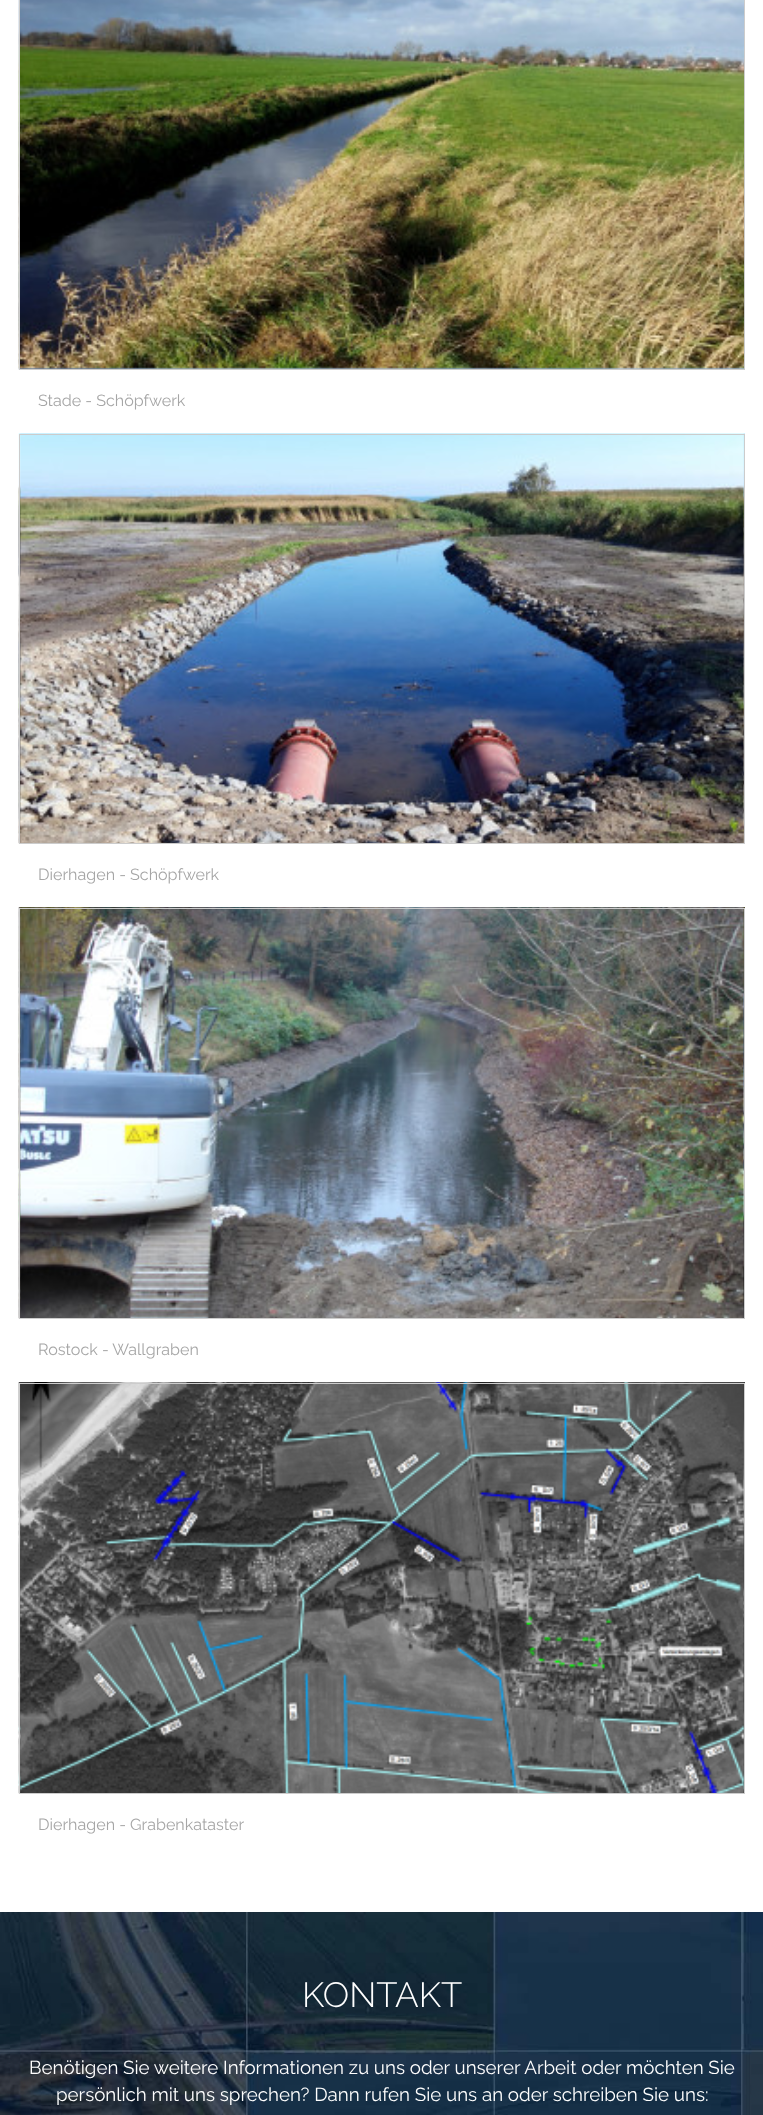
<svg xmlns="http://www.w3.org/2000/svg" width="763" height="2115">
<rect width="100%" height="100%" fill="#fff"/>
<image x="18" y="0" width="726" height="370" href="media/1.png"/>
<rect x="19.5" y="-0.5" width="725" height="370" fill="none" stroke="#ccc"/>
<text x="38" y="406" style="font-family:Raleway;font-size:16.1px;fill:#a6a6a6">Stade - Schöpfwerk</text>
<image x="18" y="433" width="727" height="411" href="media/2.png"/>
<rect x="19.5" y="434.5" width="725" height="409" fill="none" stroke="#ccc"/>
<text x="38" y="880" style="font-family:Raleway;font-size:16.1px;fill:#a6a6a6">Dierhagen - Schöpfwerk</text>
<image x="18" y="907" width="727" height="412" href="media/3.png"/>
<rect x="19.5" y="908.5" width="725" height="410" fill="none" stroke="#ccc"/>
<text x="38" y="1355" style="font-family:Raleway;font-size:16.1px;fill:#a6a6a6">Rostock - Wallgraben</text>
<image x="18" y="1382" width="727" height="412" href="media/4.png"/>
<rect x="19.5" y="1383.5" width="725" height="410" fill="none" stroke="#ccc"/>
<text x="38" y="1830" style="font-family:Raleway;font-size:16.1px;fill:#a6a6a6">Dierhagen - Grabenkataster</text>
<image x="0" y="1912" width="763" height="203" href="media/5.png"/>
<text x="302" y="2007" style="font-family:Raleway;font-size:35px;font-weight:300;fill:#fff">KONTAKT</text>
<text x="29" y="2074" style="font-family:Raleway;font-size:18.75px;fill:#fff">Benötigen Sie weitere Informationen zu uns oder unserer Arbeit oder möchten Sie</text>
<text x="56" y="2101" style="font-family:Raleway;font-size:18.75px;fill:#fff">persönlich mit uns sprechen? Dann rufen Sie uns an oder schreiben Sie uns:</text>
</svg>
